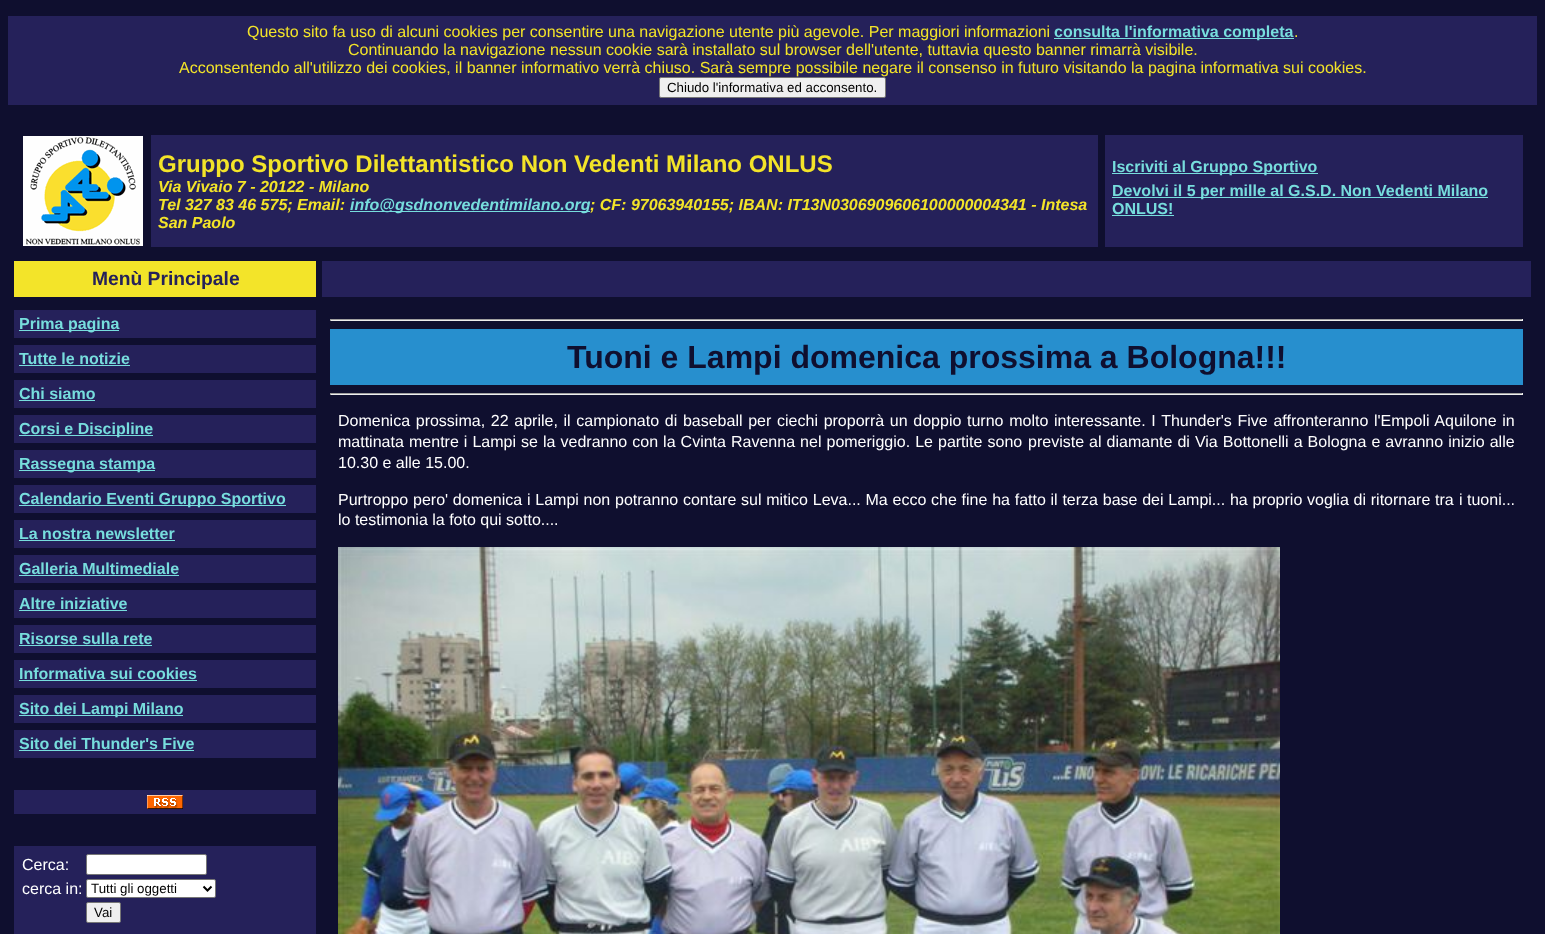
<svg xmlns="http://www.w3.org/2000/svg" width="1545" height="934">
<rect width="100%" height="100%" fill="#0f0f2f"/>
<rect x="8" y="16" width="1529" height="89" fill="#25215a"/>
<text x="247" y="37" style="font-family:Liberation Sans;font-size:16px;fill:#f3e429">Questo sito fa uso di alcuni cookies per consentire una navigazione utente più agevole. Per maggiori informazioni</text>
<rect x="1054" y="38" width="240" height="1" fill="#7dd"/>
<text x="1054" y="37" style="font-family:Liberation Sans;font-size:16px;font-weight:bold;fill:#7dd">consulta l'informativa completa</text>
<text x="1294" y="37" style="font-family:Liberation Sans;font-size:16px;fill:#f3e429">.</text>
<text x="348" y="55" style="font-family:Liberation Sans;font-size:16px;fill:#f3e429">Continuando la navigazione nessun cookie sarà installato sul browser dell'utente, tuttavia questo banner rimarrà visibile.</text>
<text x="179" y="73" style="font-family:Liberation Sans;font-size:16px;fill:#f3e429">Acconsentendo all'utilizzo dei cookies, il banner informativo verrà chiuso. Sarà sempre possibile negare il consenso in futuro visitando la pagina informativa sui cookies.</text>
<rect x="659.5" y="77.5" width="226" height="20" rx="1.5" fill="#efefef" stroke="#767676"/>
<text x="667" y="92" style="font-family:Liberation Sans;font-size:13.3px;fill:#000">Chiudo l'informativa ed acconsento.</text>
<image x="23" y="136" width="120" height="110" href="media/1.png"/>
<rect x="151" y="135" width="947" height="112" fill="#25215a"/>
<text x="158" y="172" style="font-family:Liberation Sans;font-size:24px;font-weight:bold;fill:#f3e429">Gruppo Sportivo Dilettantistico Non Vedenti Milano ONLUS</text>
<text x="158" y="192" style="font-family:Liberation Sans;font-size:16px;font-weight:bold;font-style:italic;fill:#f3e429">Via Vivaio 7 - 20122 - Milano</text>
<text x="158" y="210" style="font-family:Liberation Sans;font-size:16px;font-weight:bold;font-style:italic;fill:#f3e429">Tel 327 83 46 575; Email:</text>
<rect x="350" y="211" width="240" height="1" fill="#7dd"/>
<text x="350" y="210" style="font-family:Liberation Sans;font-size:16px;font-weight:bold;font-style:italic;fill:#7dd">info@gsdnonvedentimilano.org</text>
<text x="590" y="210" style="font-family:Liberation Sans;font-size:16px;font-weight:bold;font-style:italic;fill:#f3e429">; CF: 97063940155; IBAN: IT13N0306909606100000004341 - Intesa</text>
<text x="158" y="228" style="font-family:Liberation Sans;font-size:16px;font-weight:bold;font-style:italic;fill:#f3e429">San Paolo</text>
<rect x="1105" y="135" width="418" height="112" fill="#25215a"/>
<rect x="1112" y="173" width="206" height="1" fill="#7dd"/>
<text x="1112" y="172" style="font-family:Liberation Sans;font-size:16px;font-weight:bold;fill:#7dd">Iscriviti al Gruppo Sportivo</text>
<rect x="1112" y="197" width="376" height="1" fill="#7dd"/>
<text x="1112" y="196" style="font-family:Liberation Sans;font-size:16px;font-weight:bold;fill:#7dd">Devolvi il 5 per mille al G.S.D. Non Vedenti Milano</text>
<text x="1112" y="214" style="font-family:Liberation Sans;font-size:16px;font-weight:bold;fill:#7dd">ONLUS!</text>
<rect x="1112" y="215" width="62" height="1" fill="#7dd"/>
<rect x="14" y="261" width="302" height="36" fill="#f3e429"/>
<text x="92" y="285" style="font-family:Liberation Sans;font-size:19.25px;font-weight:bold;fill:#25215a">Menù Principale</text>
<rect x="322" y="261" width="1209" height="36" fill="#25215a"/>
<rect x="14" y="310" width="302" height="28" fill="#25215a"/>
<rect x="19" y="330" width="100" height="1" fill="#7dd"/>
<text x="19" y="329" style="font-family:Liberation Sans;font-size:16px;font-weight:bold;fill:#7dd">Prima pagina</text>
<rect x="14" y="345" width="302" height="28" fill="#25215a"/>
<text x="19" y="364" style="font-family:Liberation Sans;font-size:16px;font-weight:bold;fill:#7dd">Tutte le notizie</text>
<rect x="19" y="365" width="111" height="1" fill="#7dd"/>
<rect x="14" y="380" width="302" height="28" fill="#25215a"/>
<text x="19" y="399" style="font-family:Liberation Sans;font-size:16px;font-weight:bold;fill:#7dd">Chi siamo</text>
<rect x="19" y="400" width="76" height="1" fill="#7dd"/>
<rect x="14" y="415" width="302" height="28" fill="#25215a"/>
<rect x="19" y="435" width="134" height="1" fill="#7dd"/>
<text x="19" y="434" style="font-family:Liberation Sans;font-size:16px;font-weight:bold;fill:#7dd">Corsi e Discipline</text>
<rect x="14" y="450" width="302" height="28" fill="#25215a"/>
<rect x="19" y="470" width="136" height="1" fill="#7dd"/>
<text x="19" y="469" style="font-family:Liberation Sans;font-size:16px;font-weight:bold;fill:#7dd">Rassegna stampa</text>
<rect x="14" y="485" width="302" height="28" fill="#25215a"/>
<rect x="19" y="505" width="267" height="1" fill="#7dd"/>
<text x="19" y="504" style="font-family:Liberation Sans;font-size:16px;font-weight:bold;fill:#7dd">Calendario Eventi Gruppo Sportivo</text>
<rect x="14" y="520" width="302" height="28" fill="#25215a"/>
<text x="19" y="539" style="font-family:Liberation Sans;font-size:16px;font-weight:bold;fill:#7dd">La nostra newsletter</text>
<rect x="19" y="540" width="156" height="1" fill="#7dd"/>
<rect x="14" y="555" width="302" height="28" fill="#25215a"/>
<text x="19" y="574" style="font-family:Liberation Sans;font-size:16px;font-weight:bold;fill:#7dd">Galleria Multimediale</text>
<rect x="19" y="575" width="160" height="1" fill="#7dd"/>
<rect x="14" y="590" width="302" height="28" fill="#25215a"/>
<text x="19" y="609" style="font-family:Liberation Sans;font-size:16px;font-weight:bold;fill:#7dd">Altre iniziative</text>
<rect x="19" y="610" width="108" height="1" fill="#7dd"/>
<rect x="14" y="625" width="302" height="28" fill="#25215a"/>
<text x="19" y="644" style="font-family:Liberation Sans;font-size:16px;font-weight:bold;fill:#7dd">Risorse sulla rete</text>
<rect x="19" y="645" width="133" height="1" fill="#7dd"/>
<rect x="14" y="660" width="302" height="28" fill="#25215a"/>
<text x="19" y="679" style="font-family:Liberation Sans;font-size:16px;font-weight:bold;fill:#7dd">Informativa sui cookies</text>
<rect x="19" y="680" width="178" height="1" fill="#7dd"/>
<rect x="14" y="695" width="302" height="28" fill="#25215a"/>
<rect x="19" y="715" width="164" height="1" fill="#7dd"/>
<text x="19" y="714" style="font-family:Liberation Sans;font-size:16px;font-weight:bold;fill:#7dd">Sito dei Lampi Milano</text>
<rect x="14" y="730" width="302" height="28" fill="#25215a"/>
<text x="19" y="749" style="font-family:Liberation Sans;font-size:16px;font-weight:bold;fill:#7dd">Sito dei Thunder's Five</text>
<rect x="19" y="750" width="175" height="1" fill="#7dd"/>
<rect x="14" y="790" width="302" height="24" fill="#25215a"/>
<image x="147" y="795" width="36" height="14" href="media/2.png"/>
<rect x="14" y="846" width="302" height="88" fill="#25215a"/>
<text x="22" y="870" style="font-family:Liberation Sans;font-size:16px;fill:#fff">Cerca:</text>
<rect x="86.5" y="854.5" width="120" height="20" rx="1.5" fill="#fff" stroke="#767676"/>
<text x="22" y="894" style="font-family:Liberation Sans;font-size:16px;fill:#fff">cerca in:</text>
<rect x="86.5" y="879.5" width="129" height="18" rx="1.5" fill="#fff" stroke="#767676"/>
<path d="M203.5 886.5l4 4l4-4" fill="none" stroke="#000" stroke-width="2"/>
<text x="91" y="893" style="font-family:Liberation Sans;font-size:13.3px;fill:#000">Tutti gli oggetti</text>
<rect x="86.5" y="902.5" width="34" height="20" rx="1.5" fill="#efefef" stroke="#767676"/>
<text x="94" y="917" style="font-family:Liberation Sans;font-size:13.3px;fill:#000">Vai</text>
<rect x="330" y="319" width="1193" height="1" fill="#9f9f9f"/>
<rect x="1522" y="319" width="1" height="2" fill="#eee"/>
<rect x="330" y="320" width="1193" height="1" fill="#eee"/>
<rect x="330" y="319" width="1" height="2" fill="#9f9f9f"/>
<rect x="330" y="329" width="1193" height="56" fill="#278fce"/>
<text x="567" y="368" style="font-family:Liberation Sans;font-size:32px;font-weight:bold;fill:#0f0f2f">Tuoni e Lampi domenica prossima a Bologna!!!</text>
<rect x="330" y="393" width="1193" height="1" fill="#9f9f9f"/>
<rect x="1522" y="393" width="1" height="2" fill="#eee"/>
<rect x="330" y="394" width="1193" height="1" fill="#eee"/>
<rect x="330" y="393" width="1" height="2" fill="#9f9f9f"/>
<text x="338" y="426" word-spacing="1.25" style="font-family:Liberation Sans;font-size:16px;fill:#fff">Domenica prossima, 22 aprile, il campionato di baseball per ciechi proporrà un doppio</text>
<text x="967" y="426" word-spacing="1.25" style="font-family:Liberation Sans;font-size:16px;fill:#fff">turno molto interessante. I Thunder's Five affronteranno l'Empoli Aquilone in</text>
<text x="338" y="447" style="font-family:Liberation Sans;font-size:16px;fill:#fff">mattinata</text>
<text x="409" y="447" word-spacing="0.6" style="font-family:Liberation Sans;font-size:16px;fill:#fff">mentre i Lampi se la vedranno con la Cvinta Ravenna nel pomeriggio. Le partite sono</text>
<text x="1028" y="447" word-spacing="0.6" style="font-family:Liberation Sans;font-size:16px;fill:#fff">previste al diamante di Via Bottonelli a Bologna e avranno inizio alle</text>
<text x="338" y="468" style="font-family:Liberation Sans;font-size:16px;fill:#fff">10.30 e alle 15.00.</text>
<text x="338" y="505" word-spacing="0.3" style="font-family:Liberation Sans;font-size:16px;fill:#fff">Purtroppo pero' domenica i Lampi non potranno contare sul mitico Leva... Ma ecco che fine ha fatto il terza base dei Lampi... ha proprio voglia di ritornare tra</text>
<text x="1459" y="505" style="font-family:Liberation Sans;font-size:16px;fill:#fff">i tuoni...</text>
<text x="338" y="525" style="font-family:Liberation Sans;font-size:16px;fill:#fff">lo testimonia la foto qui sotto....</text>
<image x="338" y="547" width="942" height="387" href="media/3.png"/>
</svg>
